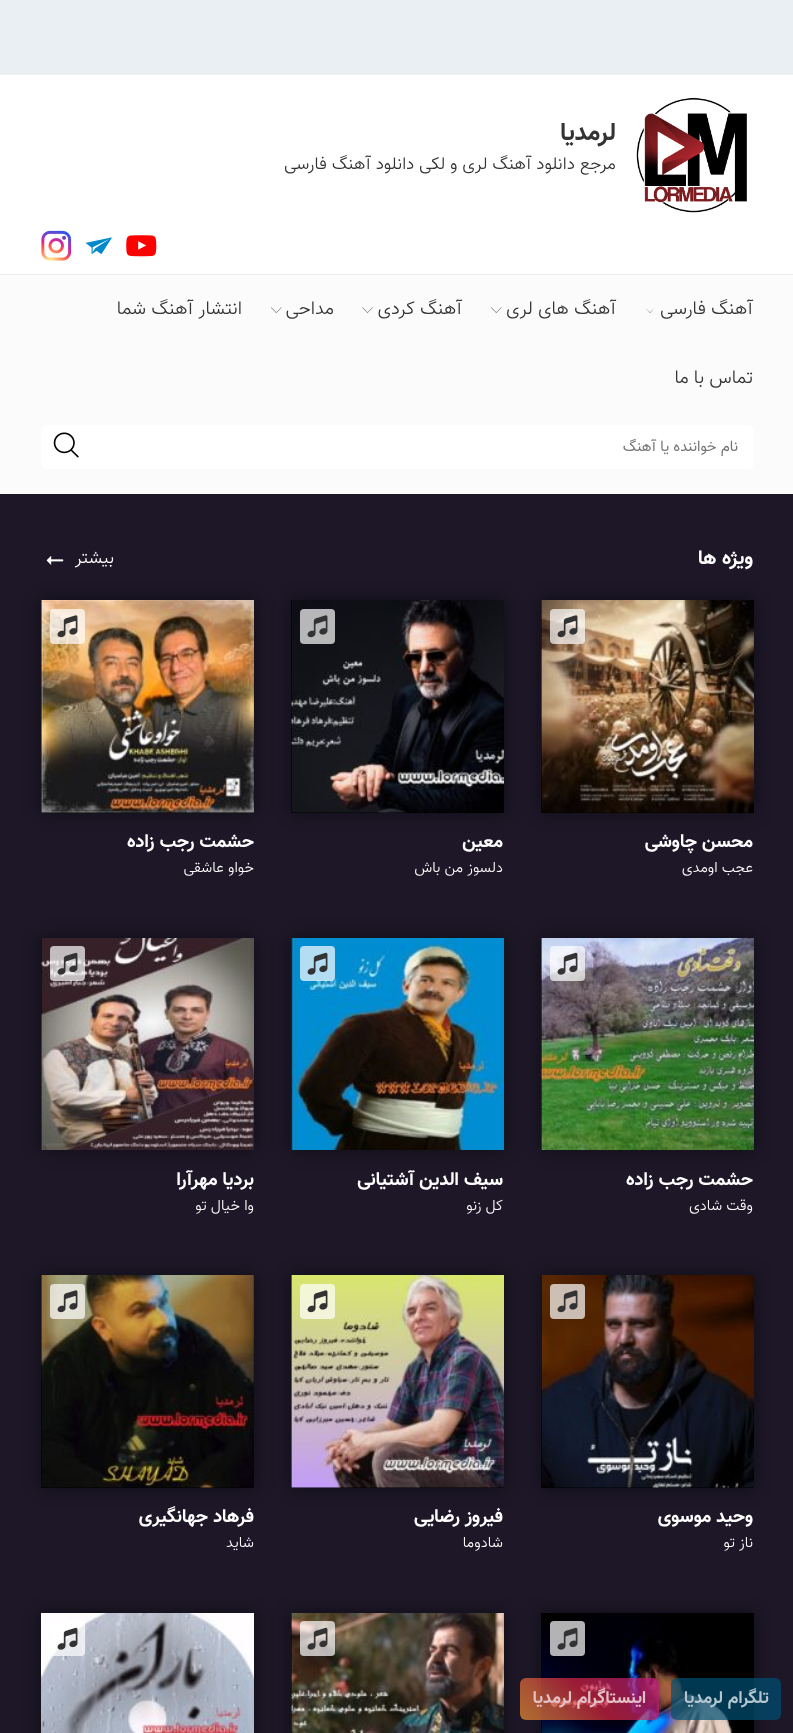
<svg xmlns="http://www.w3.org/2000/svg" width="793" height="1733">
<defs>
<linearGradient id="g1" gradientUnits="userSpaceOnUse" x1="544" y1="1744" x2="635" y2="1653"><stop offset="0" stop-color="#f09433" stop-opacity="0.7"/><stop offset="0.25" stop-color="#e6683c" stop-opacity="0.7"/><stop offset="0.5" stop-color="#dc2743" stop-opacity="0.7"/><stop offset="0.75" stop-color="#cc2366" stop-opacity="0.7"/><stop offset="1" stop-color="#bc1888" stop-opacity="0.7"/></linearGradient>
</defs>
<rect width="100%" height="100%" fill="#e9eff2"/>
<rect y="75" width="793" height="199" fill="#fff"/>
<image x="636" y="97" width="111" height="116" href="media/1.png"/>
<text x="616" y="140" style="font-family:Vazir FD;font-size:25px;font-weight:bold;direction:rtl;fill:#333">لرمدیا</text>
<text x="616" y="169" style="font-family:Vazir FD;font-size:17.5px;font-weight:300;direction:rtl;fill:#333">مرجع دانلود آهنگ لری و لکی دانلود آهنگ فارسی</text>
<image x="126" y="235" width="31" height="22" href="media/2.png"/>
<image x="85" y="237" width="27" height="17" href="media/3.png"/>
<image x="41" y="230" width="31" height="31" href="media/4.png"/>
<rect y="275" width="793" height="219" fill="#fbfbfb"/>
<text x="753" y="314" style="font-family:Vazir FD;font-size:18.75px;font-weight:300;direction:rtl;fill:#333">آهنگ فارسی</text>
<path d="M655 307.5l-5 5.5l-5-5.5l5 5z" fill="#333"/>
<text x="616" y="314" style="font-family:Vazir FD;font-size:18.75px;font-weight:300;direction:rtl;fill:#333">آهنگ های لری</text>
<image x="491" y="307" width="11" height="6" href="media/5.png"/>
<text x="462" y="314" style="font-family:Vazir FD;font-size:18.75px;font-weight:300;direction:rtl;fill:#333">آهنگ کردی</text>
<image x="362" y="307" width="11" height="6" href="media/6.png"/>
<text x="334" y="314" style="font-family:Vazir FD;font-size:18.75px;font-weight:300;direction:rtl;fill:#333">مداحی</text>
<image x="271" y="307" width="11" height="6" href="media/5.png"/>
<text x="242" y="314" style="font-family:Vazir FD;font-size:18.75px;font-weight:300;direction:rtl;fill:#333">انتشار آهنگ شما</text>
<text x="753" y="383" style="font-family:Vazir FD;font-size:18.75px;font-weight:300;direction:rtl;fill:#333">تماس با ما</text>
<rect x="41" y="425" width="713" height="44" rx="6" fill="#fff"/>
<text x="738" y="451" style="font-family:Vazir FD;font-size:15px;direction:rtl;fill:#757575">نام خواننده یا آهنگ</text>
<image x="53" y="432" width="26" height="26" href="media/7.png"/>
<rect y="494" width="793" height="1239" fill="#1d1727"/>
<text x="753" y="564" style="font-family:Vazir FD;font-size:20px;font-weight:bold;direction:rtl;fill:#fff">ویژه ها</text>
<text x="114" y="563" style="font-family:Vazir FD;font-size:17.5px;font-weight:300;direction:rtl;fill:#fff">بیشتر</text>
<image x="46" y="556" width="18" height="9" href="media/8.png"/>
<rect x="541" y="600" width="213" height="213" fill="#00000070" filter="blur(9px)"/>
<rect x="541" y="600" width="213" height="213" fill="#000"/>
<image x="541" y="600" width="213" height="213" href="media/9.png"/>
<rect x="550" y="609" width="35" height="35" rx="4" fill="#ffffffb3"/>
<image x="557" y="615" width="21" height="23" href="media/10.png"/>
<text x="753" y="847" style="font-family:Vazir FD;font-size:18.75px;font-weight:bold;direction:rtl;fill:#fff">محسن چاوشی</text>
<text x="753" y="872" style="font-family:Vazir FD;font-size:15px;font-weight:300;direction:rtl;fill:#fff">عجب اومدی</text>
<rect x="291" y="600" width="213" height="213" fill="#00000070" filter="blur(9px)"/>
<rect x="291" y="600" width="213" height="213" fill="#000"/>
<image x="291" y="600" width="213" height="213" href="media/11.png"/>
<rect x="300" y="609" width="35" height="35" rx="4" fill="#ffffffb3"/>
<image x="307" y="615" width="21" height="23" href="media/12.png"/>
<text x="503" y="847" style="font-family:Vazir FD;font-size:18.75px;font-weight:bold;direction:rtl;fill:#fff">معین</text>
<text x="503" y="872" style="font-family:Vazir FD;font-size:15px;font-weight:300;direction:rtl;fill:#fff">دلسوز من باش</text>
<rect x="41" y="600" width="213" height="213" fill="#00000070" filter="blur(9px)"/>
<rect x="41" y="600" width="213" height="213" fill="#000"/>
<image x="41" y="600" width="213" height="213" href="media/13.png"/>
<rect x="50" y="609" width="35" height="35" rx="4" fill="#ffffffb3"/>
<image x="57" y="615" width="21" height="23" href="media/14.png"/>
<text x="254" y="847" style="font-family:Vazir FD;font-size:18.75px;font-weight:bold;direction:rtl;fill:#fff">حشمت رجب زاده</text>
<text x="254" y="872" style="font-family:Vazir FD;font-size:15px;font-weight:300;direction:rtl;fill:#fff">خواو عاشقی</text>
<rect x="541" y="938" width="213" height="212" fill="#00000070" filter="blur(9px)"/>
<rect x="541" y="938" width="1" height="212" fill="#000"/>
<image x="541" y="938" width="213" height="212" href="media/15.png"/>
<rect x="550" y="946" width="35" height="35" rx="4" fill="#ffffffb3"/>
<image x="557" y="952" width="21" height="23" href="media/16.png"/>
<text x="753" y="1185" style="font-family:Vazir FD;font-size:18.75px;font-weight:bold;direction:rtl;fill:#fff">حشمت رجب زاده</text>
<text x="753" y="1210" style="font-family:Vazir FD;font-size:15px;font-weight:300;direction:rtl;fill:#fff">وقت شادی</text>
<rect x="291" y="938" width="213" height="212" fill="#00000070" filter="blur(9px)"/>
<rect x="291" y="938" width="1" height="212" fill="#000"/>
<image x="291" y="938" width="213" height="212" href="media/17.png"/>
<rect x="300" y="946" width="35" height="35" rx="4" fill="#ffffffb3"/>
<image x="307" y="952" width="21" height="23" href="media/18.png"/>
<text x="503" y="1185" style="font-family:Vazir FD;font-size:18.75px;font-weight:bold;direction:rtl;fill:#fff">سیف الدین آشتیانی</text>
<text x="503" y="1210" style="font-family:Vazir FD;font-size:15px;font-weight:300;direction:rtl;fill:#fff">کل زنو</text>
<rect x="41" y="938" width="213" height="212" fill="#00000070" filter="blur(9px)"/>
<rect x="41" y="938" width="1" height="212" fill="#000"/>
<image x="41" y="938" width="213" height="212" href="media/19.png"/>
<rect x="50" y="946" width="35" height="35" rx="4" fill="#ffffffb3"/>
<image x="57" y="952" width="21" height="23" href="media/20.png"/>
<text x="254" y="1185" style="font-family:Vazir FD;font-size:18.75px;font-weight:bold;direction:rtl;fill:#fff">بردیا مهرآرا</text>
<text x="254" y="1210" style="font-family:Vazir FD;font-size:15px;font-weight:300;direction:rtl;fill:#fff">وا خیال تو</text>
<rect x="541" y="1275" width="213" height="213" fill="#00000070" filter="blur(9px)"/>
<rect x="541" y="1275" width="213" height="213" fill="#000"/>
<image x="541" y="1275" width="213" height="213" href="media/21.png"/>
<rect x="550" y="1284" width="35" height="35" rx="4" fill="#ffffffb3"/>
<image x="557" y="1290" width="21" height="23" href="media/22.png"/>
<text x="753" y="1522" style="font-family:Vazir FD;font-size:18.75px;font-weight:bold;direction:rtl;fill:#fff">وحید موسوی</text>
<text x="753" y="1547" style="font-family:Vazir FD;font-size:15px;font-weight:300;direction:rtl;fill:#fff">ناز تو</text>
<rect x="291" y="1275" width="213" height="213" fill="#00000070" filter="blur(9px)"/>
<rect x="291" y="1275" width="213" height="213" fill="#000"/>
<image x="291" y="1275" width="213" height="213" href="media/23.png"/>
<rect x="300" y="1284" width="35" height="35" rx="4" fill="#ffffffb3"/>
<image x="307" y="1290" width="21" height="23" href="media/24.png"/>
<text x="503" y="1522" style="font-family:Vazir FD;font-size:18.75px;font-weight:bold;direction:rtl;fill:#fff">فیروز رضایی</text>
<text x="503" y="1547" style="font-family:Vazir FD;font-size:15px;font-weight:300;direction:rtl;fill:#fff">شادوما</text>
<rect x="41" y="1275" width="213" height="213" fill="#00000070" filter="blur(9px)"/>
<rect x="41" y="1275" width="213" height="213" fill="#000"/>
<image x="41" y="1275" width="213" height="213" href="media/25.png"/>
<rect x="50" y="1284" width="35" height="35" rx="4" fill="#ffffffb3"/>
<image x="57" y="1290" width="21" height="23" href="media/26.png"/>
<text x="254" y="1522" style="font-family:Vazir FD;font-size:18.75px;font-weight:bold;direction:rtl;fill:#fff">فرهاد جهانگیری</text>
<text x="254" y="1547" style="font-family:Vazir FD;font-size:15px;font-weight:300;direction:rtl;fill:#fff">شاید</text>
<rect x="541" y="1613" width="213" height="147" fill="#00000070" filter="blur(9px)"/>
<rect x="541" y="1613" width="213" height="120" fill="#000"/>
<image x="541" y="1613" width="192" height="120" href="media/27.png"/>
<rect x="550" y="1621" width="35" height="35" rx="4" fill="#ffffffb3"/>
<image x="557" y="1627" width="21" height="23" href="media/28.png"/>
<rect x="291" y="1613" width="213" height="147" fill="#00000070" filter="blur(9px)"/>
<rect x="291" y="1613" width="1" height="120" fill="#000"/>
<image x="291" y="1613" width="213" height="120" href="media/29.png"/>
<rect x="300" y="1621" width="35" height="35" rx="4" fill="#ffffffb3"/>
<image x="307" y="1627" width="21" height="23" href="media/30.png"/>
<rect x="41" y="1613" width="213" height="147" fill="#00000070" filter="blur(9px)"/>
<image x="41" y="1613" width="213" height="120" href="media/31.png"/>
<rect x="50" y="1621" width="35" height="35" rx="4" fill="#ffffffb3"/>
<image x="57" y="1627" width="21" height="23" href="media/32.png"/>
<rect x="671" y="1678" width="110" height="42" rx="6" fill="#005075b3"/>
<text x="769" y="1703" style="font-family:Vazir FD;font-size:17.5px;font-weight:bold;direction:rtl;fill:#b6c6ce">تلگرام لرمدیا</text>
<rect x="520" y="1678" width="139" height="42" rx="6" fill="url(#g1)"/>
<text x="646" y="1703" style="font-family:Vazir FD;font-size:17.5px;font-weight:bold;direction:rtl;fill:#e3c1c7">اینستاگرام لرمدیا</text>
</svg>
